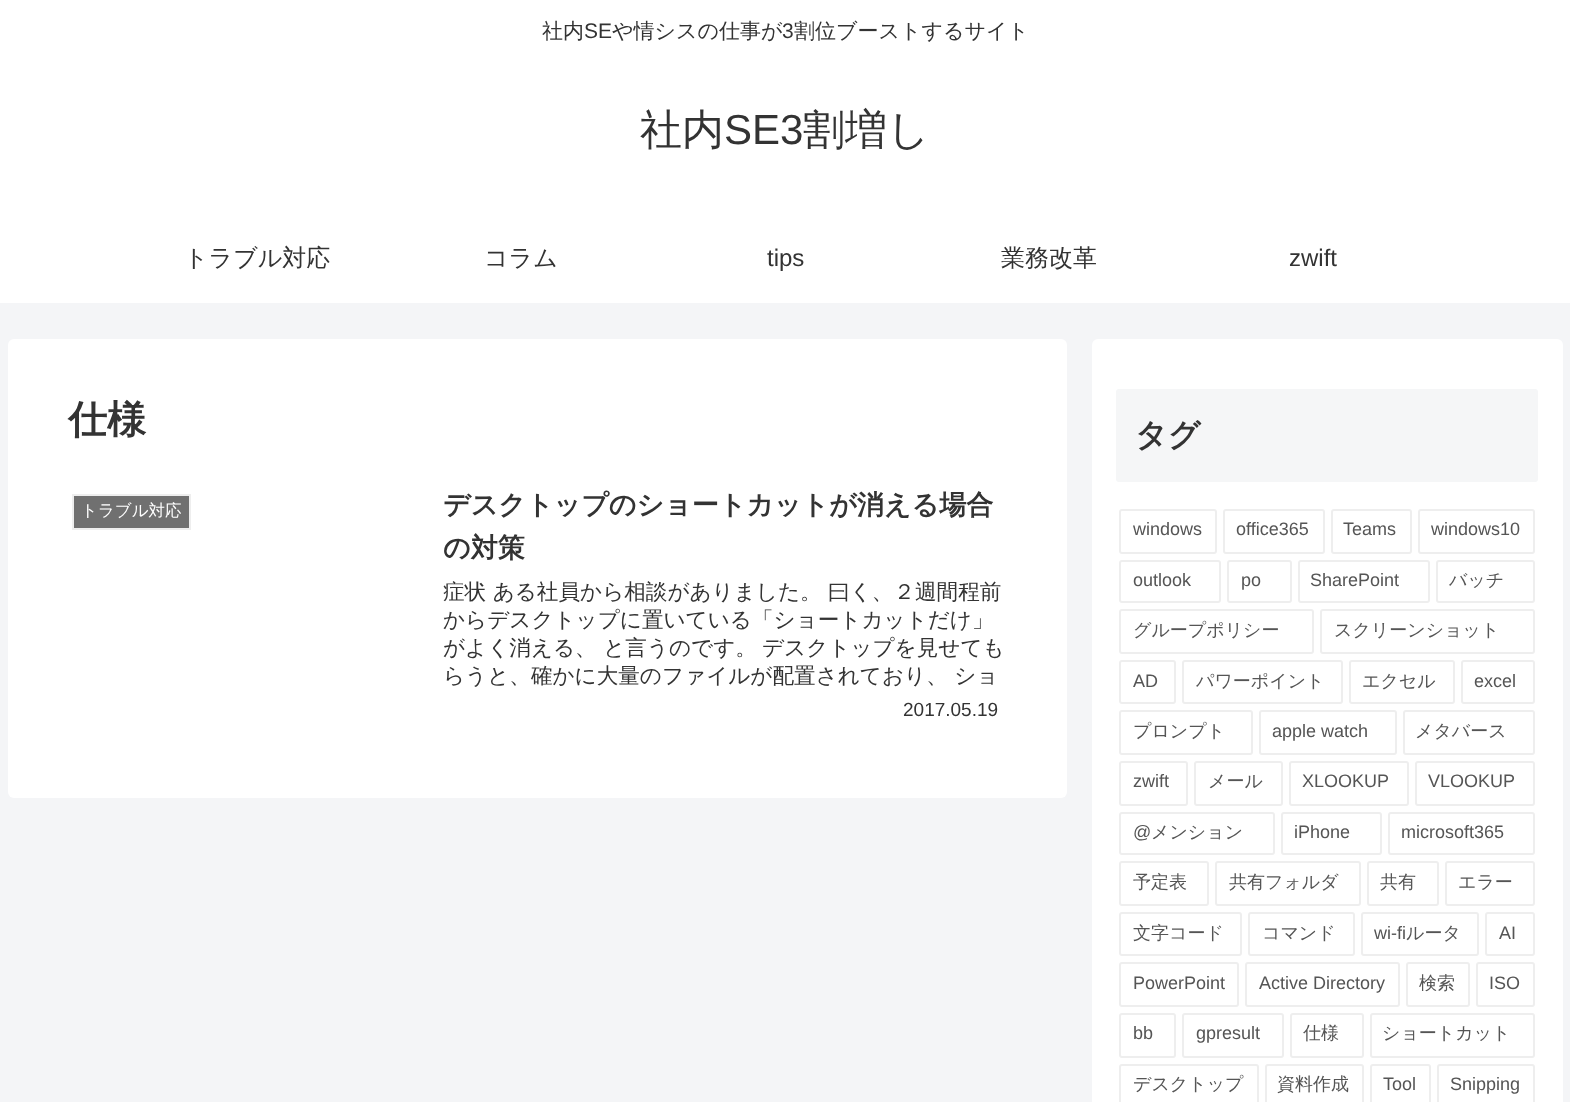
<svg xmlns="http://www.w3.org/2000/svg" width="1570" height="1102">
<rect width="100%" height="100%" fill="#f4f5f7"/>
<rect width="1570" height="303" fill="#fff"/>
<text x="542" y="38" style="font-family:WenQuanYi Zen Hei;font-size:21px;font-weight:500;fill:#333">社内</text>
<text x="584" y="38" style="font-family:Liberation Sans;font-size:21px;fill:#333">SE</text>
<text x="612" y="38" style="font-family:WenQuanYi Zen Hei;font-size:21px;font-weight:500;fill:#333">や情シスの仕事が</text>
<text x="782" y="38" style="font-family:Liberation Sans;font-size:21px;fill:#333">3</text>
<text x="794" y="38" style="font-family:WenQuanYi Zen Hei;font-size:21px;font-weight:500;fill:#333">割位ブーストするサイト</text>
<text x="640" y="144" style="font-family:WenQuanYi Zen Hei;font-size:42px;font-weight:500;fill:#333">社内</text>
<text x="724" y="144" style="font-family:Liberation Sans;font-size:42px;fill:#333">SE3</text>
<text x="803" y="144" style="font-family:WenQuanYi Zen Hei;font-size:42px;font-weight:500;fill:#333">割増し</text>
<text x="184" y="266" style="font-family:WenQuanYi Zen Hei;font-size:24px;font-weight:500;fill:#333">トラブル対応</text>
<text x="484" y="266" style="font-family:WenQuanYi Zen Hei;font-size:24px;font-weight:500;fill:#333">コラム</text>
<text x="767" y="266" style="font-family:Liberation Sans;font-size:24px;fill:#333">tips</text>
<text x="1001" y="266" style="font-family:WenQuanYi Zen Hei;font-size:24px;font-weight:500;fill:#333">業務改革</text>
<text x="1289" y="266" style="font-family:Liberation Sans;font-size:24px;fill:#333">zwift</text>
<rect x="8" y="339" width="1059" height="459" rx="6" fill="#fff"/>
<text x="68" y="433" style="font-family:WenQuanYi Zen Hei;font-size:39px;font-weight:bold;fill:#333">仕様</text>
<rect x="73" y="495" width="117" height="34" fill="#707070" stroke="#eee" stroke-width="2"/>
<text x="81" y="516" style="font-family:WenQuanYi Zen Hei;font-size:16.5px;font-weight:500;fill:#fff">トラブル対応</text>
<text x="443" y="514" style="font-family:WenQuanYi Zen Hei;font-size:27px;font-weight:bold;fill:#333">デスクトップのショートカットが消える場合</text>
<text x="443" y="557" style="font-family:WenQuanYi Zen Hei;font-size:27px;font-weight:bold;fill:#333">の対策</text>
<text x="443" y="599" style="font-family:WenQuanYi Zen Hei;font-size:21.6px;font-weight:500;fill:#333">症状 ある社員から相談がありました。 曰く、２週間程前</text>
<text x="443" y="627" style="font-family:WenQuanYi Zen Hei;font-size:21.6px;font-weight:500;fill:#333">からデスクトップに置いている「ショートカットだけ」</text>
<text x="443" y="655" style="font-family:WenQuanYi Zen Hei;font-size:21.6px;font-weight:500;fill:#333">がよく消える、 と言うのです。</text>
<text x="762" y="655" style="font-family:WenQuanYi Zen Hei;font-size:21.6px;font-weight:500;fill:#333">デスクトップを見せても</text>
<text x="443" y="683" style="font-family:WenQuanYi Zen Hei;font-size:21.6px;font-weight:500;fill:#333">らうと、確かに大量のファイルが配置されており、 ショ</text>
<text x="903" y="716" style="font-family:Liberation Sans;font-size:19px;fill:#333">2017.05.19</text>
<rect x="1092" y="339" width="471" height="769" rx="6" fill="#fff"/>
<rect x="1116" y="389" width="422" height="93" rx="3" fill="#f5f6f7"/>
<text x="1135" y="446" style="font-family:WenQuanYi Zen Hei;font-size:32px;font-weight:bold;fill:#333">タグ</text>
<rect x="1120" y="510" width="96" height="43" rx="2" fill="none" stroke="#eee" stroke-width="2"/>
<text x="1133" y="535" style="font-family:Liberation Sans;font-size:18px;fill:#555">windows</text>
<rect x="1224" y="510" width="100" height="43" rx="2" fill="none" stroke="#eee" stroke-width="2"/>
<text x="1236" y="535" style="font-family:Liberation Sans;font-size:18px;fill:#555">office365</text>
<rect x="1332" y="510" width="79" height="43" rx="2" fill="none" stroke="#eee" stroke-width="2"/>
<text x="1343" y="535" style="font-family:Liberation Sans;font-size:18px;fill:#555">Teams</text>
<rect x="1419" y="510" width="115" height="43" rx="2" fill="none" stroke="#eee" stroke-width="2"/>
<text x="1431" y="535" style="font-family:Liberation Sans;font-size:18px;fill:#555">windows10</text>
<rect x="1120" y="561" width="100" height="41" rx="2" fill="none" stroke="#eee" stroke-width="2"/>
<text x="1133" y="586" style="font-family:Liberation Sans;font-size:18px;fill:#555">outlook</text>
<rect x="1228" y="561" width="63" height="41" rx="2" fill="none" stroke="#eee" stroke-width="2"/>
<text x="1241" y="586" style="font-family:Liberation Sans;font-size:18px;fill:#555">po</text>
<rect x="1299" y="561" width="130" height="41" rx="2" fill="none" stroke="#eee" stroke-width="2"/>
<text x="1310" y="586" style="font-family:Liberation Sans;font-size:18px;fill:#555">SharePoint</text>
<rect x="1437" y="561" width="97" height="41" rx="2" fill="none" stroke="#eee" stroke-width="2"/>
<text x="1449" y="586" style="font-family:WenQuanYi Zen Hei;font-size:18px;font-weight:500;fill:#555">バッチ</text>
<rect x="1120" y="610" width="193" height="43" rx="2" fill="none" stroke="#eee" stroke-width="2"/>
<text x="1133" y="636" style="font-family:WenQuanYi Zen Hei;font-size:18px;font-weight:500;fill:#555">グループポリシー</text>
<rect x="1321" y="610" width="213" height="43" rx="2" fill="none" stroke="#eee" stroke-width="2"/>
<text x="1334" y="636" style="font-family:WenQuanYi Zen Hei;font-size:18px;font-weight:500;fill:#555">スクリーンショット</text>
<rect x="1120" y="661" width="55" height="42" rx="2" fill="none" stroke="#eee" stroke-width="2"/>
<text x="1133" y="687" style="font-family:Liberation Sans;font-size:18px;fill:#555">AD</text>
<rect x="1183" y="661" width="159" height="42" rx="2" fill="none" stroke="#eee" stroke-width="2"/>
<text x="1196" y="687" style="font-family:WenQuanYi Zen Hei;font-size:18px;font-weight:500;fill:#555">パワーポイント</text>
<rect x="1350" y="661" width="104" height="42" rx="2" fill="none" stroke="#eee" stroke-width="2"/>
<text x="1362" y="687" style="font-family:WenQuanYi Zen Hei;font-size:18px;font-weight:500;fill:#555">エクセル</text>
<rect x="1462" y="661" width="72" height="42" rx="2" fill="none" stroke="#eee" stroke-width="2"/>
<text x="1474" y="687" style="font-family:Liberation Sans;font-size:18px;fill:#555">excel</text>
<rect x="1120" y="711" width="132" height="43" rx="2" fill="none" stroke="#eee" stroke-width="2"/>
<text x="1133" y="737" style="font-family:WenQuanYi Zen Hei;font-size:18px;font-weight:500;fill:#555">プロンプト</text>
<rect x="1260" y="711" width="136" height="43" rx="2" fill="none" stroke="#eee" stroke-width="2"/>
<text x="1272" y="737" style="font-family:Liberation Sans;font-size:18px;fill:#555">apple watch</text>
<rect x="1404" y="711" width="130" height="43" rx="2" fill="none" stroke="#eee" stroke-width="2"/>
<text x="1415" y="737" style="font-family:WenQuanYi Zen Hei;font-size:18px;font-weight:500;fill:#555">メタバース</text>
<rect x="1120" y="762" width="67" height="43" rx="2" fill="none" stroke="#eee" stroke-width="2"/>
<text x="1133" y="787" style="font-family:Liberation Sans;font-size:18px;fill:#555">zwift</text>
<rect x="1195" y="762" width="87" height="43" rx="2" fill="none" stroke="#eee" stroke-width="2"/>
<text x="1208" y="787" style="font-family:WenQuanYi Zen Hei;font-size:18px;font-weight:500;fill:#555">メール</text>
<rect x="1290" y="762" width="118" height="43" rx="2" fill="none" stroke="#eee" stroke-width="2"/>
<text x="1302" y="787" style="font-family:Liberation Sans;font-size:18px;fill:#555">XLOOKUP</text>
<rect x="1416" y="762" width="118" height="43" rx="2" fill="none" stroke="#eee" stroke-width="2"/>
<text x="1428" y="787" style="font-family:Liberation Sans;font-size:18px;fill:#555">VLOOKUP</text>
<rect x="1120" y="813" width="154" height="41" rx="2" fill="none" stroke="#eee" stroke-width="2"/>
<text x="1133" y="838" style="font-family:Liberation Sans;font-size:18px;fill:#555">@</text>
<text x="1151" y="838" style="font-family:WenQuanYi Zen Hei;font-size:18px;font-weight:500;fill:#555">メンション</text>
<rect x="1282" y="813" width="99" height="41" rx="2" fill="none" stroke="#eee" stroke-width="2"/>
<text x="1294" y="838" style="font-family:Liberation Sans;font-size:18px;fill:#555">iPhone</text>
<rect x="1389" y="813" width="145" height="41" rx="2" fill="none" stroke="#eee" stroke-width="2"/>
<text x="1401" y="838" style="font-family:Liberation Sans;font-size:18px;fill:#555">microsoft365</text>
<rect x="1120" y="862" width="88" height="43" rx="2" fill="none" stroke="#eee" stroke-width="2"/>
<text x="1133" y="888" style="font-family:WenQuanYi Zen Hei;font-size:18px;font-weight:500;fill:#555">予定表</text>
<rect x="1216" y="862" width="144" height="43" rx="2" fill="none" stroke="#eee" stroke-width="2"/>
<text x="1229" y="888" style="font-family:WenQuanYi Zen Hei;font-size:18px;font-weight:500;fill:#555">共有フォルダ</text>
<rect x="1368" y="862" width="70" height="43" rx="2" fill="none" stroke="#eee" stroke-width="2"/>
<text x="1380" y="888" style="font-family:WenQuanYi Zen Hei;font-size:18px;font-weight:500;fill:#555">共有</text>
<rect x="1446" y="862" width="88" height="43" rx="2" fill="none" stroke="#eee" stroke-width="2"/>
<text x="1458" y="888" style="font-family:WenQuanYi Zen Hei;font-size:18px;font-weight:500;fill:#555">エラー</text>
<rect x="1120" y="913" width="121" height="42" rx="2" fill="none" stroke="#eee" stroke-width="2"/>
<text x="1133" y="939" style="font-family:WenQuanYi Zen Hei;font-size:18px;font-weight:500;fill:#555">文字コード</text>
<rect x="1249" y="913" width="105" height="42" rx="2" fill="none" stroke="#eee" stroke-width="2"/>
<text x="1262" y="939" style="font-family:WenQuanYi Zen Hei;font-size:18px;font-weight:500;fill:#555">コマンド</text>
<rect x="1362" y="913" width="116" height="42" rx="2" fill="none" stroke="#eee" stroke-width="2"/>
<text x="1374" y="939" style="font-family:Liberation Sans;font-size:18px;fill:#555">wi-fi</text>
<text x="1406" y="939" style="font-family:WenQuanYi Zen Hei;font-size:18px;font-weight:500;fill:#555">ルータ</text>
<rect x="1486" y="913" width="48" height="42" rx="2" fill="none" stroke="#eee" stroke-width="2"/>
<text x="1499" y="939" style="font-family:Liberation Sans;font-size:18px;fill:#555">AI</text>
<rect x="1120" y="963" width="118" height="43" rx="2" fill="none" stroke="#eee" stroke-width="2"/>
<text x="1133" y="989" style="font-family:Liberation Sans;font-size:18px;fill:#555">PowerPoint</text>
<rect x="1246" y="963" width="153" height="43" rx="2" fill="none" stroke="#eee" stroke-width="2"/>
<text x="1259" y="989" style="font-family:Liberation Sans;font-size:18px;fill:#555">Active Directory</text>
<rect x="1407" y="963" width="62" height="43" rx="2" fill="none" stroke="#eee" stroke-width="2"/>
<text x="1419" y="989" style="font-family:WenQuanYi Zen Hei;font-size:18px;font-weight:500;fill:#555">検索</text>
<rect x="1477" y="963" width="57" height="43" rx="2" fill="none" stroke="#eee" stroke-width="2"/>
<text x="1489" y="989" style="font-family:Liberation Sans;font-size:18px;fill:#555">ISO</text>
<rect x="1120" y="1014" width="55" height="43" rx="2" fill="none" stroke="#eee" stroke-width="2"/>
<text x="1133" y="1039" style="font-family:Liberation Sans;font-size:18px;fill:#555">bb</text>
<rect x="1183" y="1014" width="100" height="43" rx="2" fill="none" stroke="#eee" stroke-width="2"/>
<text x="1196" y="1039" style="font-family:Liberation Sans;font-size:18px;fill:#555">gpresult</text>
<rect x="1291" y="1014" width="72" height="43" rx="2" fill="none" stroke="#eee" stroke-width="2"/>
<text x="1303" y="1039" style="font-family:WenQuanYi Zen Hei;font-size:18px;font-weight:500;fill:#555">仕様</text>
<rect x="1371" y="1014" width="163" height="43" rx="2" fill="none" stroke="#eee" stroke-width="2"/>
<text x="1382" y="1039" style="font-family:WenQuanYi Zen Hei;font-size:18px;font-weight:500;fill:#555">ショートカット</text>
<rect x="1120" y="1065" width="138" height="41" rx="2" fill="none" stroke="#eee" stroke-width="2"/>
<text x="1133" y="1090" style="font-family:WenQuanYi Zen Hei;font-size:18px;font-weight:500;fill:#555">デスクトップ</text>
<rect x="1266" y="1065" width="97" height="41" rx="2" fill="none" stroke="#eee" stroke-width="2"/>
<text x="1277" y="1090" style="font-family:WenQuanYi Zen Hei;font-size:18px;font-weight:500;fill:#555">資料作成</text>
<rect x="1371" y="1065" width="59" height="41" rx="2" fill="none" stroke="#eee" stroke-width="2"/>
<text x="1383" y="1090" style="font-family:Liberation Sans;font-size:18px;fill:#555">Tool</text>
<rect x="1438" y="1065" width="96" height="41" rx="2" fill="none" stroke="#eee" stroke-width="2"/>
<text x="1450" y="1090" style="font-family:Liberation Sans;font-size:18px;fill:#555">Snipping</text>
</svg>
